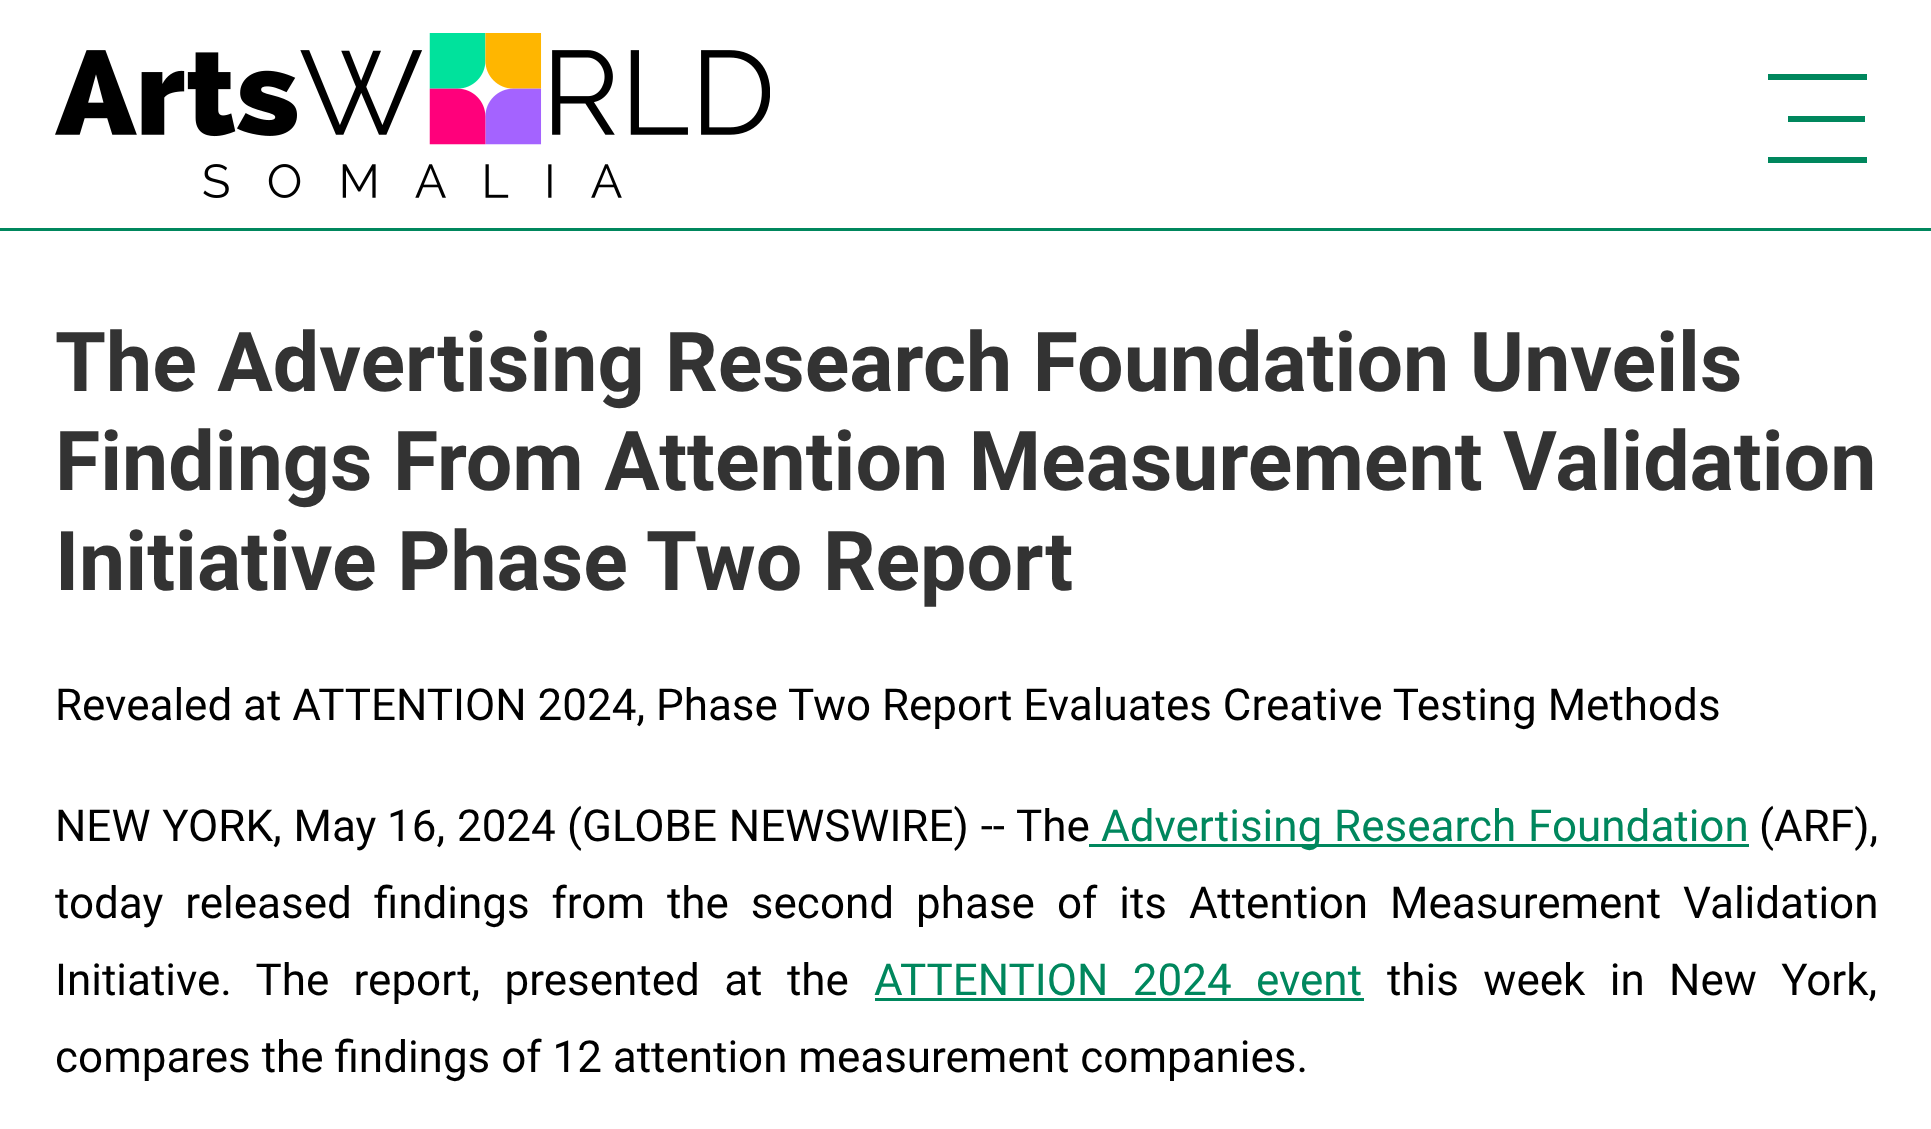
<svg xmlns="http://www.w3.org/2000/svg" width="1931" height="1129">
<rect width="100%" height="100%" fill="#fff"/>
<image x="55" y="33" width="715" height="165" href="media/1.png"/>
<rect x="1768" y="74" width="99" height="6" fill="#00875d"/>
<rect x="1788" y="116" width="77" height="6" fill="#00875d"/>
<rect x="1768" y="157" width="99" height="6" fill="#00875d"/>
<rect y="228" width="1931" height="3" fill="#00875d"/>
<text x="55" y="391" style="font-family:Roboto;font-size:82.5px;font-weight:bold;fill:#333">The Advertising Research Foundation Unveils</text>
<text x="55" y="490" style="font-family:Roboto;font-size:82.5px;font-weight:bold;fill:#333">Findings From Attention Measurement Validation</text>
<text x="55" y="590" style="font-family:Roboto;font-size:82.5px;font-weight:bold;fill:#333">Initiative Phase Two Report</text>
<text x="55" y="720" style="font-family:Roboto;font-size:44px;fill:#000">Revealed at ATTENTION 2024, Phase Two Report Evaluates Creative Testing Methods</text>
<text x="55" y="841" word-spacing="1" style="font-family:Roboto;font-size:44px;fill:#000">NEW YORK, May</text>
<text x="387" y="841" word-spacing="1" style="font-family:Roboto;font-size:44px;fill:#000">16, 2024</text>
<text x="567" y="841" word-spacing="1" style="font-family:Roboto;font-size:44px;fill:#000">(GLOBE NEWSWIRE) -- The</text>
<rect x="1089" y="844" width="660" height="3" fill="#00875d"/>
<text x="1101" y="841" word-spacing="1" style="font-family:Roboto;font-size:44px;fill:#00875d">Advertising Research Foundation</text>
<text x="1759" y="841" style="font-family:Roboto;font-size:44px;fill:#000">(ARF),</text>
<text x="55" y="918" word-spacing="11.1" style="font-family:Roboto;font-size:44px;fill:#000">today released findings from the second phase of its Attention Measurement Validation</text>
<text x="55" y="995" word-spacing="13.5" style="font-family:Roboto;font-size:44px;fill:#000">Initiative. The report, presented at the</text>
<text x="874" y="995" word-spacing="13.5" style="font-family:Roboto;font-size:44px;fill:#00875d">ATTENTION 2024 event</text>
<rect x="875" y="998" width="489" height="3" fill="#00875d"/>
<text x="1387" y="995" word-spacing="13.5" style="font-family:Roboto;font-size:44px;fill:#000">this week in New York,</text>
<text x="55" y="1072" style="font-family:Roboto;font-size:44px;fill:#000">compares the findings of 12 attention measurement companies.</text>
</svg>
